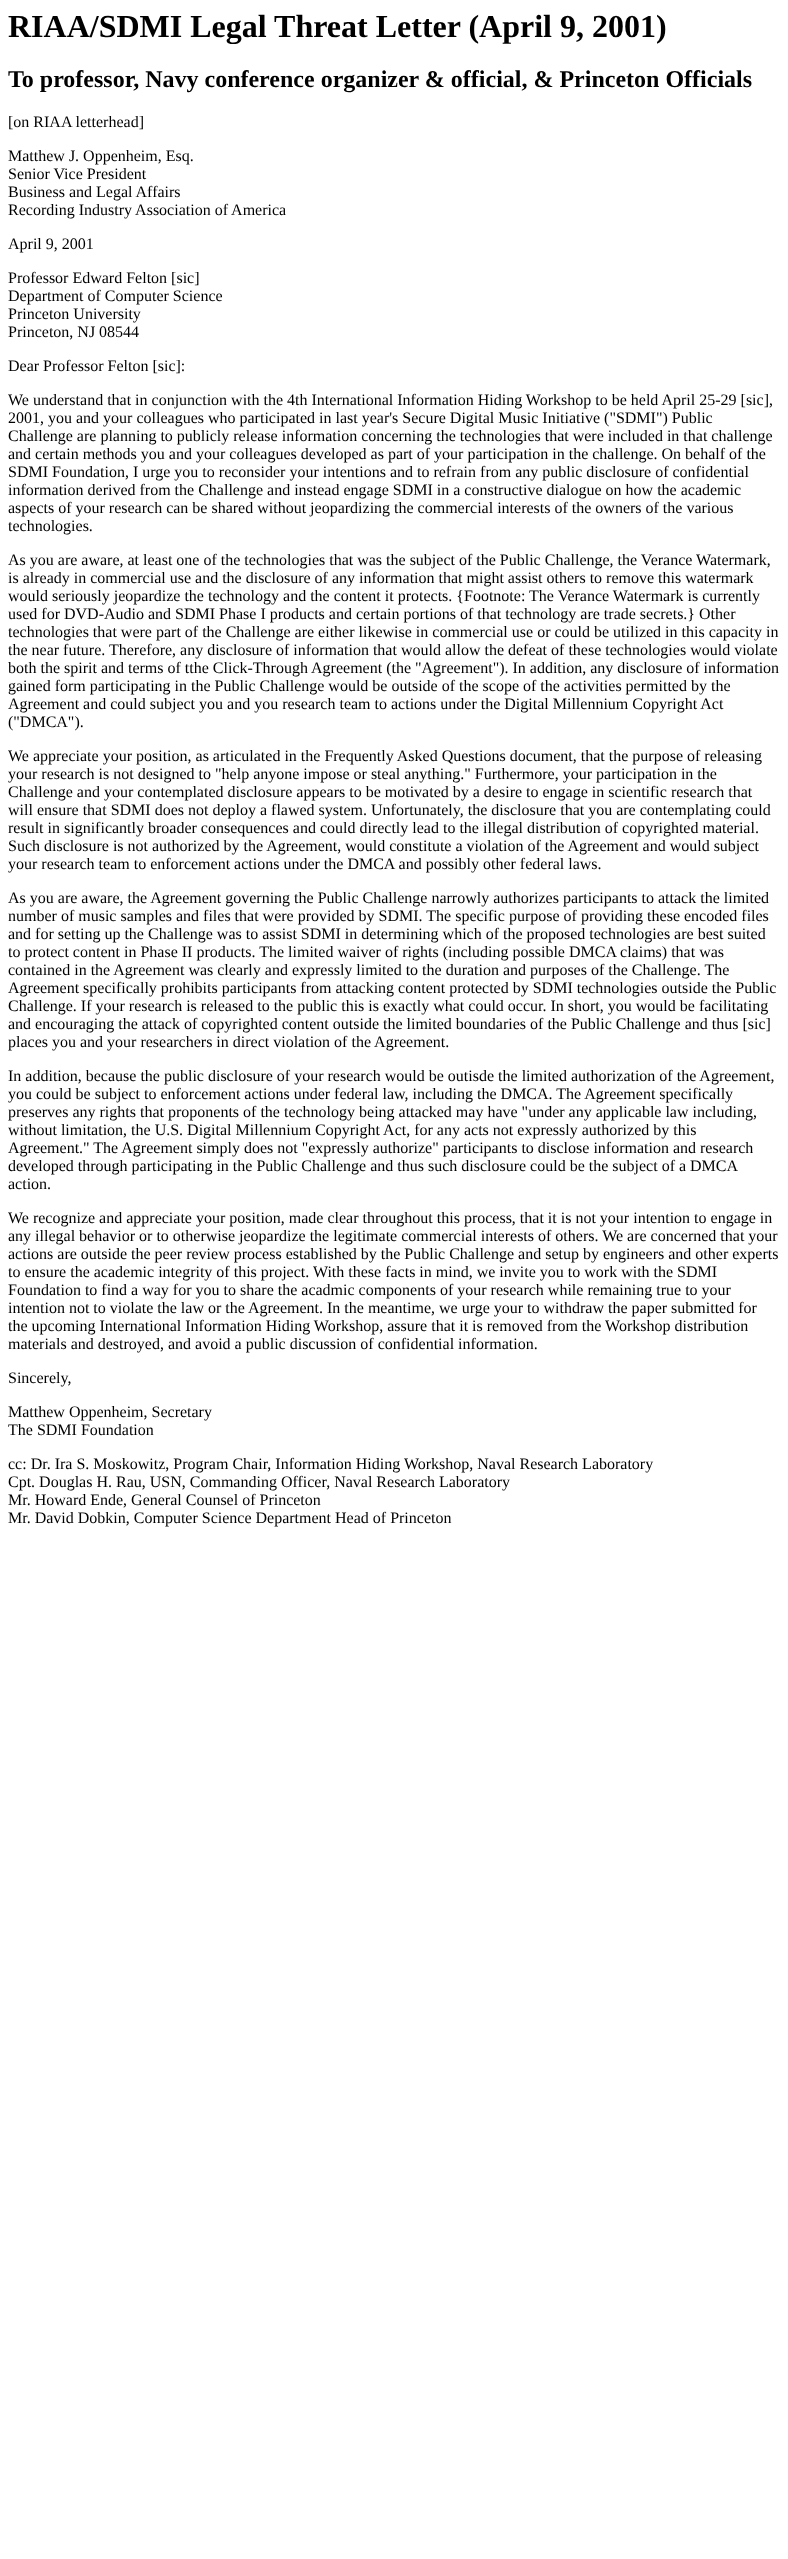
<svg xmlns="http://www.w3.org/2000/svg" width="788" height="2559">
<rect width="100%" height="100%" fill="#fff"/>
<text x="8" y="37" style="font-family:Liberation Serif;font-size:32px;font-weight:bold;fill:#000">RIAA/SDMI Legal Threat Letter (April 9, 2001)</text>
<text x="8" y="87" style="font-family:Liberation Serif;font-size:24px;font-weight:bold;fill:#000">To professor, Navy conference organizer &amp; official, &amp; Princeton Officials</text>
<text x="8" y="127" style="font-family:Liberation Serif;font-size:16px;fill:#000">[on RIAA letterhead]</text>
<text x="8" y="161" style="font-family:Liberation Serif;font-size:16px;fill:#000">Matthew J. Oppenheim, Esq.</text>
<text x="8" y="179" style="font-family:Liberation Serif;font-size:16px;fill:#000">Senior Vice President</text>
<text x="8" y="197" style="font-family:Liberation Serif;font-size:16px;fill:#000">Business and Legal Affairs</text>
<text x="8" y="215" style="font-family:Liberation Serif;font-size:16px;fill:#000">Recording Industry Association of America</text>
<text x="8" y="249" style="font-family:Liberation Serif;font-size:16px;fill:#000">April 9, 2001</text>
<text x="8" y="283" style="font-family:Liberation Serif;font-size:16px;fill:#000">Professor Edward Felton [sic]</text>
<text x="8" y="301" style="font-family:Liberation Serif;font-size:16px;fill:#000">Department of Computer Science</text>
<text x="8" y="319" style="font-family:Liberation Serif;font-size:16px;fill:#000">Princeton University</text>
<text x="8" y="337" style="font-family:Liberation Serif;font-size:16px;fill:#000">Princeton, NJ 08544</text>
<text x="8" y="371" style="font-family:Liberation Serif;font-size:16px;fill:#000">Dear Professor Felton [sic]:</text>
<text x="8" y="405" style="font-family:Liberation Serif;font-size:16px;fill:#000">We understand that in conjunction with the 4th International Information Hiding Workshop to be held April 25-29 [sic],</text>
<text x="8" y="423" style="font-family:Liberation Serif;font-size:16px;fill:#000">2001, you and your colleagues who participated in last year's Secure Digital Music Initiative ("SDMI") Public</text>
<text x="8" y="441" style="font-family:Liberation Serif;font-size:16px;fill:#000">Challenge are planning to publicly release information concerning the technologies that were included in that challenge</text>
<text x="8" y="459" style="font-family:Liberation Serif;font-size:16px;fill:#000">and certain methods you and your colleagues developed as part of your participation in the challenge. On behalf of the</text>
<text x="8" y="477" style="font-family:Liberation Serif;font-size:16px;fill:#000">SDMI Foundation, I urge you to reconsider your intentions and to refrain from any public disclosure of confidential</text>
<text x="8" y="495" style="font-family:Liberation Serif;font-size:16px;fill:#000">information derived from the Challenge and instead engage SDMI in a constructive dialogue on how the academic</text>
<text x="8" y="513" style="font-family:Liberation Serif;font-size:16px;fill:#000">aspects of your research can be shared without jeopardizing the commercial interests of the owners of the various</text>
<text x="8" y="531" style="font-family:Liberation Serif;font-size:16px;fill:#000">technologies.</text>
<text x="8" y="565" style="font-family:Liberation Serif;font-size:16px;fill:#000">As you are aware, at least one of the technologies that was the subject of the Public Challenge, the Verance Watermark,</text>
<text x="8" y="583" style="font-family:Liberation Serif;font-size:16px;fill:#000">is already in commercial use and the disclosure of any information that might assist others to remove this watermark</text>
<text x="8" y="601" style="font-family:Liberation Serif;font-size:16px;fill:#000">would seriously jeopardize the technology and the content it protects. {Footnote: The Verance Watermark is currently</text>
<text x="8" y="619" style="font-family:Liberation Serif;font-size:16px;fill:#000">used for DVD-Audio and SDMI Phase I products and certain portions of that technology are trade secrets.} Other</text>
<text x="8" y="637" style="font-family:Liberation Serif;font-size:16px;fill:#000">technologies that were part of the Challenge are either likewise in commercial use or could be utilized in this capacity in</text>
<text x="8" y="655" style="font-family:Liberation Serif;font-size:16px;fill:#000">the near future. Therefore, any disclosure of information that would allow the defeat of these technologies would violate</text>
<text x="8" y="673" style="font-family:Liberation Serif;font-size:16px;fill:#000">both the spirit and terms of tthe Click-Through Agreement (the "Agreement"). In addition, any disclosure of information</text>
<text x="8" y="691" style="font-family:Liberation Serif;font-size:16px;fill:#000">gained form participating in the Public Challenge would be outside of the scope of the activities permitted by the</text>
<text x="8" y="709" style="font-family:Liberation Serif;font-size:16px;fill:#000">Agreement and could subject you and you research team to actions under the Digital Millennium Copyright Act</text>
<text x="8" y="727" style="font-family:Liberation Serif;font-size:16px;fill:#000">("DMCA").</text>
<text x="8" y="761" style="font-family:Liberation Serif;font-size:16px;fill:#000">We appreciate your position, as articulated in the Frequently Asked Questions document, that the purpose of releasing</text>
<text x="8" y="779" style="font-family:Liberation Serif;font-size:16px;fill:#000">your research is not designed to "help anyone impose or steal anything." Furthermore, your participation in the</text>
<text x="8" y="797" style="font-family:Liberation Serif;font-size:16px;fill:#000">Challenge and your contemplated disclosure appears to be motivated by a desire to engage in scientific research that</text>
<text x="8" y="815" style="font-family:Liberation Serif;font-size:16px;fill:#000">will ensure that SDMI does not deploy a flawed system. Unfortunately, the disclosure that you are contemplating could</text>
<text x="8" y="833" style="font-family:Liberation Serif;font-size:16px;fill:#000">result in significantly broader consequences and could directly lead to the illegal distribution of copyrighted material.</text>
<text x="8" y="851" style="font-family:Liberation Serif;font-size:16px;fill:#000">Such disclosure is not authorized by the Agreement, would constitute a violation of the Agreement and would subject</text>
<text x="8" y="869" style="font-family:Liberation Serif;font-size:16px;fill:#000">your research team to enforcement actions under the DMCA and possibly other federal laws.</text>
<text x="8" y="903" style="font-family:Liberation Serif;font-size:16px;fill:#000">As you are aware, the Agreement governing the Public Challenge narrowly authorizes participants to attack the limited</text>
<text x="8" y="921" style="font-family:Liberation Serif;font-size:16px;fill:#000">number of music samples and files that were provided by SDMI. The specific purpose of providing these encoded files</text>
<text x="8" y="939" style="font-family:Liberation Serif;font-size:16px;fill:#000">and for setting up the Challenge was to assist SDMI in determining which of the proposed technologies are best suited</text>
<text x="8" y="957" style="font-family:Liberation Serif;font-size:16px;fill:#000">to protect content in Phase II products. The limited waiver of rights (including possible DMCA claims) that was</text>
<text x="8" y="975" style="font-family:Liberation Serif;font-size:16px;fill:#000">contained in the Agreement was clearly and expressly limited to the duration and purposes of the Challenge. The</text>
<text x="8" y="993" style="font-family:Liberation Serif;font-size:16px;fill:#000">Agreement specifically prohibits participants from attacking content protected by SDMI technologies outside the Public</text>
<text x="8" y="1011" style="font-family:Liberation Serif;font-size:16px;fill:#000">Challenge. If your research is released to the public this is exactly what could occur. In short, you would be facilitating</text>
<text x="8" y="1029" style="font-family:Liberation Serif;font-size:16px;fill:#000">and encouraging the attack of copyrighted content outside the limited boundaries of the Public Challenge and thus [sic]</text>
<text x="8" y="1047" style="font-family:Liberation Serif;font-size:16px;fill:#000">places you and your researchers in direct violation of the Agreement.</text>
<text x="8" y="1081" style="font-family:Liberation Serif;font-size:16px;fill:#000">In addition, because the public disclosure of your research would be outisde the limited authorization of the Agreement,</text>
<text x="8" y="1099" style="font-family:Liberation Serif;font-size:16px;fill:#000">you could be subject to enforcement actions under federal law, including the DMCA. The Agreement specifically</text>
<text x="8" y="1117" style="font-family:Liberation Serif;font-size:16px;fill:#000">preserves any rights that proponents of the technology being attacked may have "under any applicable law including,</text>
<text x="8" y="1135" style="font-family:Liberation Serif;font-size:16px;fill:#000">without limitation, the U.S. Digital Millennium Copyright Act, for any acts not expressly authorized by this</text>
<text x="8" y="1153" style="font-family:Liberation Serif;font-size:16px;fill:#000">Agreement." The Agreement simply does not "expressly authorize" participants to disclose information and research</text>
<text x="8" y="1171" style="font-family:Liberation Serif;font-size:16px;fill:#000">developed through participating in the Public Challenge and thus such disclosure could be the subject of a DMCA</text>
<text x="8" y="1189" style="font-family:Liberation Serif;font-size:16px;fill:#000">action.</text>
<text x="8" y="1223" style="font-family:Liberation Serif;font-size:16px;fill:#000">We recognize and appreciate your position, made clear throughout this process, that it is not your intention to engage in</text>
<text x="8" y="1241" style="font-family:Liberation Serif;font-size:16px;fill:#000">any illegal behavior or to otherwise jeopardize the legitimate commercial interests of others. We are concerned that your</text>
<text x="8" y="1259" style="font-family:Liberation Serif;font-size:16px;fill:#000">actions are outside the peer review process established by the Public Challenge and setup by engineers and other experts</text>
<text x="8" y="1277" style="font-family:Liberation Serif;font-size:16px;fill:#000">to ensure the academic integrity of this project. With these facts in mind, we invite you to work with the SDMI</text>
<text x="8" y="1295" style="font-family:Liberation Serif;font-size:16px;fill:#000">Foundation to find a way for you to share the acadmic components of your research while remaining true to your</text>
<text x="8" y="1313" style="font-family:Liberation Serif;font-size:16px;fill:#000">intention not to violate the law or the Agreement. In the meantime, we urge your to withdraw the paper submitted for</text>
<text x="8" y="1331" style="font-family:Liberation Serif;font-size:16px;fill:#000">the upcoming International Information Hiding Workshop, assure that it is removed from the Workshop distribution</text>
<text x="8" y="1349" style="font-family:Liberation Serif;font-size:16px;fill:#000">materials and destroyed, and avoid a public discussion of confidential information.</text>
<text x="8" y="1383" style="font-family:Liberation Serif;font-size:16px;fill:#000">Sincerely,</text>
<text x="8" y="1417" style="font-family:Liberation Serif;font-size:16px;fill:#000">Matthew Oppenheim, Secretary</text>
<text x="8" y="1435" style="font-family:Liberation Serif;font-size:16px;fill:#000">The SDMI Foundation</text>
<text x="8" y="1469" style="font-family:Liberation Serif;font-size:16px;fill:#000">cc: Dr. Ira S. Moskowitz, Program Chair, Information Hiding Workshop, Naval Research Laboratory</text>
<text x="8" y="1487" style="font-family:Liberation Serif;font-size:16px;fill:#000">Cpt. Douglas H. Rau, USN, Commanding Officer, Naval Research Laboratory</text>
<text x="8" y="1505" style="font-family:Liberation Serif;font-size:16px;fill:#000">Mr. Howard Ende, General Counsel of Princeton</text>
<text x="8" y="1523" style="font-family:Liberation Serif;font-size:16px;fill:#000">Mr. David Dobkin, Computer Science Department Head of Princeton</text>
</svg>
